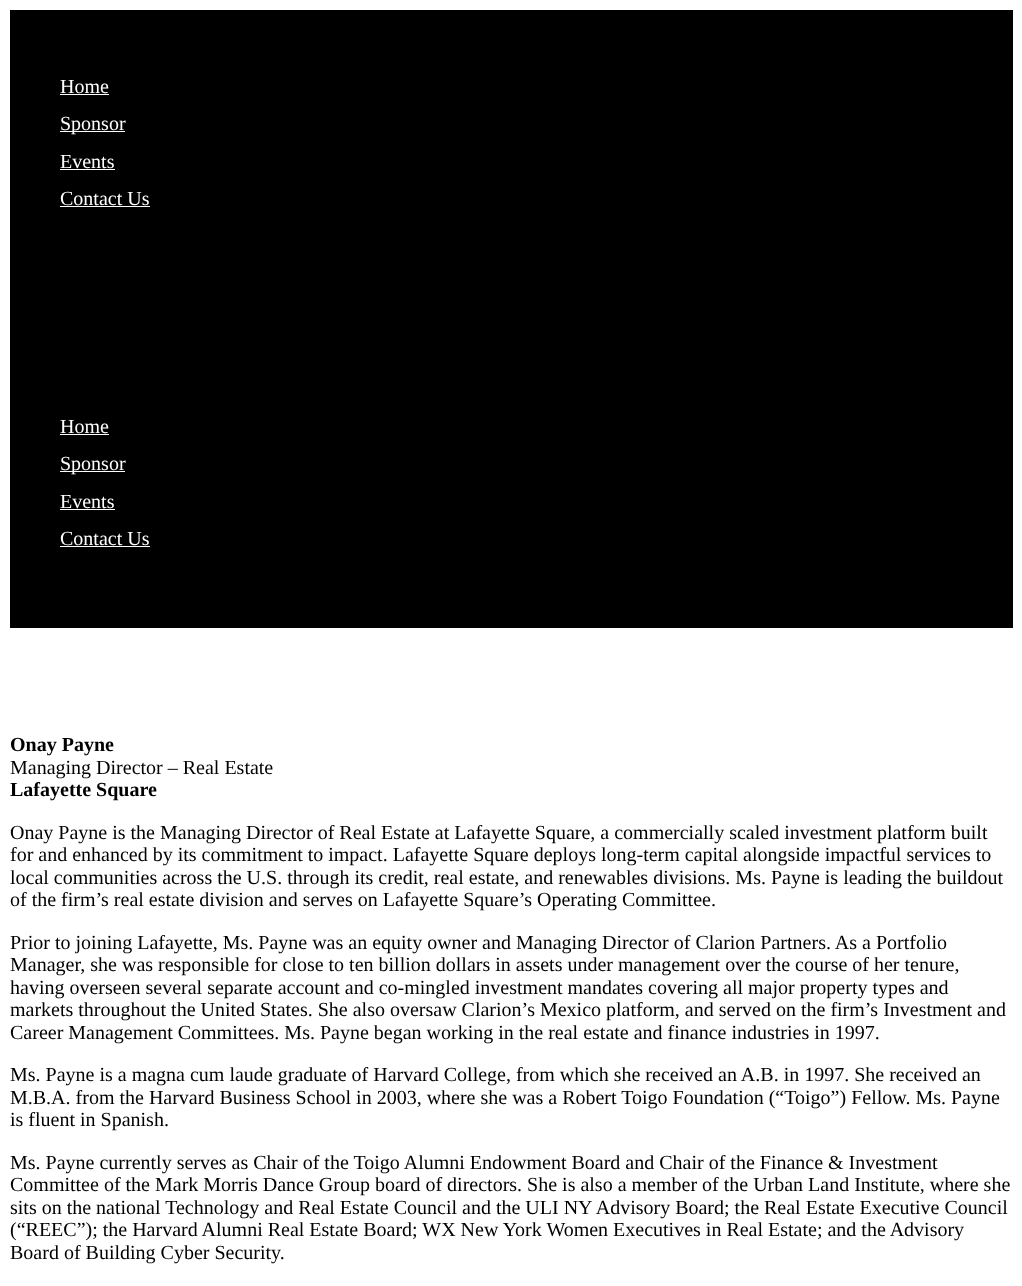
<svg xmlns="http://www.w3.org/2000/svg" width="1022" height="1286">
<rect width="100%" height="100%" fill="#fff"/>
<rect x="10" y="10" width="1003" height="618" fill="#000"/>
<text x="60" y="93" style="font-family:Liberation Serif;font-size:20px;fill:#fff">Home</text>
<rect x="60" y="94" width="49" height="1" fill="#fff"/>
<rect x="60" y="131" width="65" height="1" fill="#fff"/>
<text x="60" y="130" style="font-family:Liberation Serif;font-size:20px;fill:#fff">Sponsor</text>
<text x="60" y="168" style="font-family:Liberation Serif;font-size:20px;fill:#fff">Events</text>
<rect x="60" y="169" width="55" height="1" fill="#fff"/>
<text x="60" y="205" style="font-family:Liberation Serif;font-size:20px;fill:#fff">Contact Us</text>
<rect x="60" y="206" width="90" height="1" fill="#fff"/>
<text x="60" y="433" style="font-family:Liberation Serif;font-size:20px;fill:#fff">Home</text>
<rect x="60" y="434" width="49" height="1" fill="#fff"/>
<rect x="60" y="471" width="65" height="1" fill="#fff"/>
<text x="60" y="470" style="font-family:Liberation Serif;font-size:20px;fill:#fff">Sponsor</text>
<text x="60" y="508" style="font-family:Liberation Serif;font-size:20px;fill:#fff">Events</text>
<rect x="60" y="509" width="55" height="1" fill="#fff"/>
<text x="60" y="545" style="font-family:Liberation Serif;font-size:20px;fill:#fff">Contact Us</text>
<rect x="60" y="546" width="90" height="1" fill="#fff"/>
<text x="10" y="751" style="font-family:Liberation Serif;font-size:20px;font-weight:bold;fill:#000">Onay Payne</text>
<text x="10" y="774" style="font-family:Liberation Serif;font-size:20px;fill:#000">Managing Director – Real Estate</text>
<text x="10" y="796" style="font-family:Liberation Serif;font-size:20px;font-weight:bold;fill:#000">Lafayette Square</text>
<text x="10" y="839" style="font-family:Liberation Serif;font-size:20px;fill:#000">Onay Payne is the Managing Director of Real Estate at Lafayette Square, a commercially scaled investment platform built</text>
<text x="10" y="861" style="font-family:Liberation Serif;font-size:20px;fill:#000">for and enhanced by its commitment to impact. Lafayette Square deploys long-term capital alongside impactful services to</text>
<text x="10" y="884" style="font-family:Liberation Serif;font-size:20px;fill:#000">local communities across the U.S. through its credit, real estate, and renewables divisions. Ms. Payne is leading the buildout</text>
<text x="10" y="906" style="font-family:Liberation Serif;font-size:20px;fill:#000">of the firm’s real estate division and serves on Lafayette Square’s Operating Committee.</text>
<text x="10" y="949" style="font-family:Liberation Serif;font-size:20px;fill:#000">Prior to joining Lafayette, Ms. Payne was an equity owner and Managing Director of Clarion Partners. As a Portfolio</text>
<text x="10" y="971" style="font-family:Liberation Serif;font-size:20px;fill:#000">Manager, she was responsible for close to ten billion dollars in assets under management over the course of her tenure,</text>
<text x="10" y="994" style="font-family:Liberation Serif;font-size:20px;fill:#000">having overseen several separate account and co-mingled investment mandates covering all major property types and</text>
<text x="10" y="1016" style="font-family:Liberation Serif;font-size:20px;fill:#000">markets throughout the United States. She also oversaw Clarion’s Mexico platform, and served on the firm’s Investment and</text>
<text x="10" y="1039" style="font-family:Liberation Serif;font-size:20px;fill:#000">Career Management Committees. Ms. Payne began working in the real estate and finance industries in 1997.</text>
<text x="10" y="1081" style="font-family:Liberation Serif;font-size:20px;fill:#000">Ms. Payne is a magna cum laude graduate of Harvard College, from which she received an A.B. in 1997. She received an</text>
<text x="10" y="1104" style="font-family:Liberation Serif;font-size:20px;fill:#000">M.B.A. from the Harvard Business School in 2003, where she was a Robert Toigo Foundation (“Toigo”) Fellow. Ms. Payne</text>
<text x="10" y="1126" style="font-family:Liberation Serif;font-size:20px;fill:#000">is fluent in Spanish.</text>
<text x="10" y="1169" style="font-family:Liberation Serif;font-size:20px;fill:#000">Ms. Payne currently serves as Chair of the Toigo Alumni Endowment Board and Chair of the Finance &amp; Investment</text>
<text x="10" y="1191" style="font-family:Liberation Serif;font-size:20px;fill:#000">Committee of the Mark Morris Dance Group board of directors. She is also a member of the Urban Land Institute, where she</text>
<text x="10" y="1214" style="font-family:Liberation Serif;font-size:20px;fill:#000">sits on the national Technology and Real Estate Council and the ULI NY Advisory Board; the Real Estate Executive Council</text>
<text x="10" y="1236" style="font-family:Liberation Serif;font-size:20px;fill:#000">(“REEC”); the Harvard Alumni Real Estate Board; WX New York Women Executives in Real Estate; and the Advisory</text>
<text x="10" y="1259" style="font-family:Liberation Serif;font-size:20px;fill:#000">Board of Building Cyber Security.</text>
</svg>
